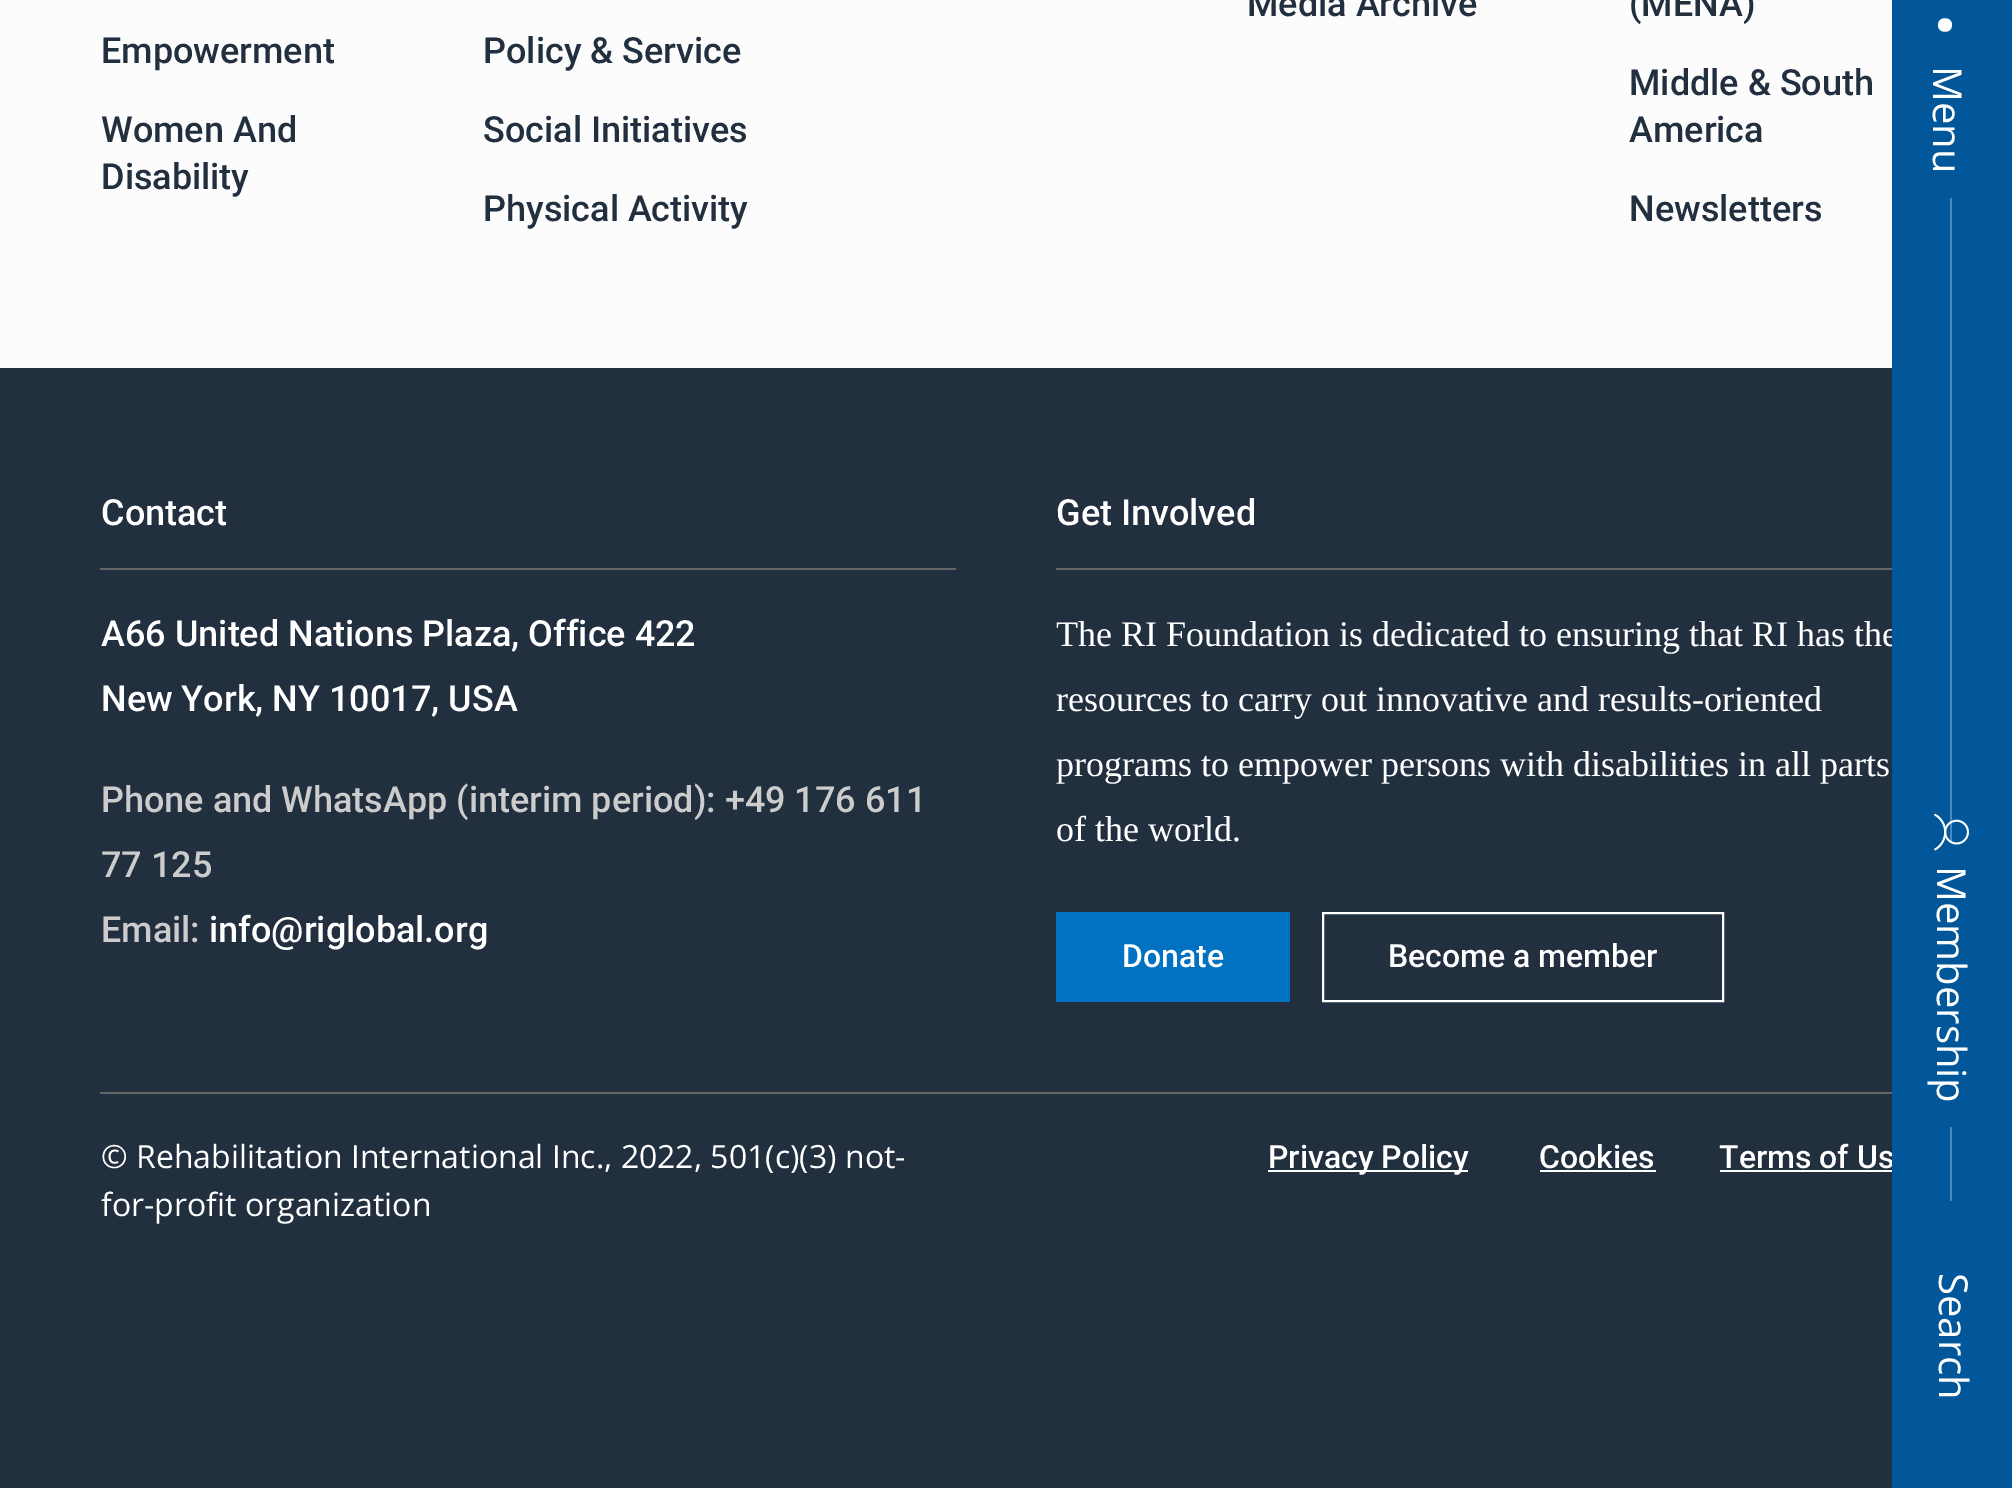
%!PS
<< /PageSize [2012 1488] >> setpagedevice
/rgb { 3 { 255 div 3 1 roll } repeat setrgbcolor } def
/font { [ exch dup neg 0 0 3 -1 roll 0 0 ] selectfont } def
/text { moveto show } def
/picture { 5 dict begin { /h /w /y /x /name } { exch def } forall
  gsave x y translate w h scale
  w h 8 [w 0 0 h 0 0] name (r) file false 3 colorimage grestore end } def
0 1488 translate 1 -1 scale
4 setmiterlimit
252 252 252 rgb
0 0 2012 1488 rectfill
34 47 63 rgb
0 368 1892 1120 rectfill
102 102 102 rgb
100 1092 1792 2 rectfill
100 568 856 2 rectfill
1056 568 836 2 rectfill
1 114 194 rgb
1056 912 234 90 rectfill
255 255 255 rgb
2 setlinewidth
1323 913 400 88 rectstroke
1268 1170 200 2 rectfill
1540 1170 116 2 rectfill
1720 1170 172 2 rectfill
/Roboto-Medium 36 font
34 47 63 rgb
(Empowerment) 101 63 text
(Women And) 101 142 text
(Disability) 101 189 text
(Policy & Service) 483 63 text
(Social Initiatives) 483 142 text
(Physical Activity) 483 221 text
(Media Archive) 1247 16 text
(\(MENA\)) 1629 16 text
(Middle & South) 1629 95 text
(America) 1629 142 text
(Newsletters) 1629 221 text
255 255 255 rgb
(Contact) 101 525 text
(A66 United Nations Plaza, Office 422) 101 646 text
(New York, NY 10017, USA) 101 711 text
204 204 204 rgb
(Phone and WhatsApp \(interim period\): +49 176 611) 101 812 text
(77 125) 101 877 text
(Email:) 101 942 text
255 255 255 rgb
(info@riglobal.org) 209 942 text
(Get Involved) 1056 525 text
/LiberationSerif-Regular 36 font
(The RI Foundation is dedicated to ensuring that RI has the) 1056 646 text
(resources to carry out innovative and results-oriented) 1056 711 text
(programs to empower persons with disabilities in all parts) 1056 776 text
(of the world.) 1056 841 text
/Roboto-Medium 32 font
(Donate) 1122 967 text
(Become a member) 1388 967 text
/OpenSans-Regular 32 font
(© Rehabilitation International Inc., 2022, 501\(c\)\(3\) not-) 101 1168 text
(for-profit organization) 101 1216 text
/Roboto-Medium 32 font
(Privacy Policy) 1268 1168 text
(Cookies) 1539 1168 text
(Terms of Us) 1719 1168 text
1 87 153 rgb
1892 0 120 1488 rectfill
255 255 255 rgb
1952 25 moveto 0 9 -14 9 -14 0 rcurveto 0 -9 14 -9 14 0 rcurveto closepath fill
/OpenSans-Regular 40 font
gsave 1933 66 translate 90 rotate 0 0 moveto (Menu) show grestore
77 137 184 rgb
1950 198 2 1003 rectfill
1 87 153 rgb
1950 842 2 285 rectfill
(img_01.rgb) 1934 813 35 38 picture
255 255 255 rgb
gsave 1937 866 translate 90 rotate 0 0 moveto (Membership) show grestore
gsave 1939 1273 translate 90 rotate 0 0 moveto (Search) show grestore
showpage
